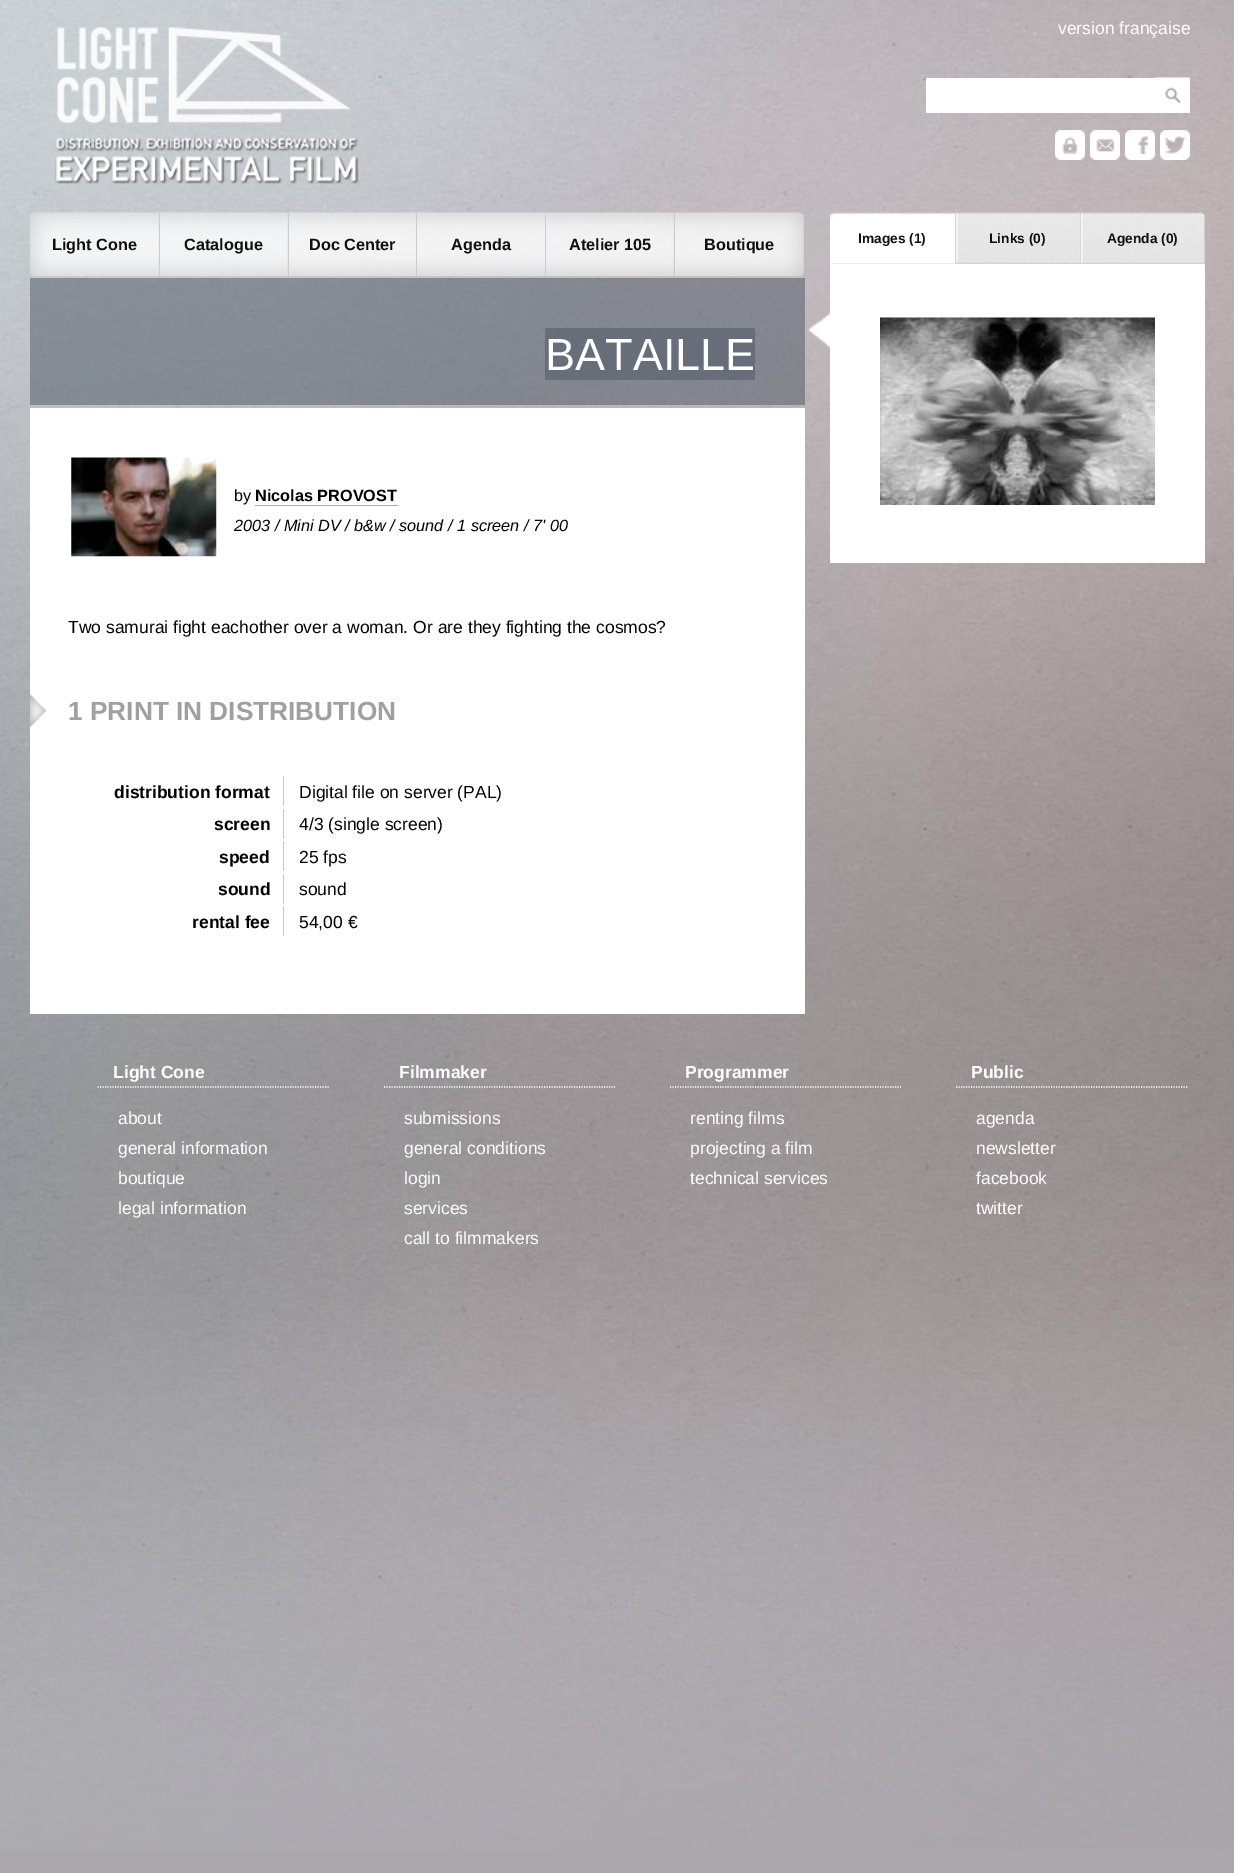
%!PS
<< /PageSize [1234 1873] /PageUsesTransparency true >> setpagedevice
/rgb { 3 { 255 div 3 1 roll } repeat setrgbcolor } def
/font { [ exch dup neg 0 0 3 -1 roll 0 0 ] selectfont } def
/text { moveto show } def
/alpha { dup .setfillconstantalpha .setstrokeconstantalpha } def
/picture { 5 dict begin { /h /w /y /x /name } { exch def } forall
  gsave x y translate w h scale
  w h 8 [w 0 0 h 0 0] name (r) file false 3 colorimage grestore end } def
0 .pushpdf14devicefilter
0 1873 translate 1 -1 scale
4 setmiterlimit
170 168 173 rgb
0 0 1234 1873 rectfill
(img_01.rgb) 0 0 1234 1849 picture
(img_02.rgb) 55 27 304 157 picture
255 255 255 rgb
926 78 229 35 rectfill
1155 104 35 9 rectfill
(img_03.rgb) 1155 77 35 27 picture
(img_04.rgb) 1055 130 30 30 picture
(img_05.rgb) 1090 130 30 30 picture
(img_06.rgb) 1125 130 30 30 picture
(img_07.rgb) 1160 130 30 30 picture
(img_08.rgb) 30 212 129 65 picture
(img_09.rgb) 158 212 130 65 picture
204 204 204 rgb
159 213 1 63 rectfill
(img_10.rgb) 287 212 130 65 picture
288 213 1 63 rectfill
(img_11.rgb) 416 212 129 65 picture
416 213 1 63 rectfill
(img_12.rgb) 545 212 129 65 picture
545 213 1 63 rectfill
(img_13.rgb) 673 212 131 65 picture
674 213 1 63 rectfill
(img_14.rgb) 808 312 22 36 picture
(img_15.rgb) 830 212 125 52 picture
(img_16.rgb) 955 212 125 52 picture
(img_17.rgb) 1080 212 125 52 picture
255 255 255 rgb
830 264 375 299 rectfill
(img_18.rgb) 880 317 275 188 picture
0.5 alpha
74 86 100 rgb
30 278 775 127 rectfill
545 328 210 52 rectfill
1 alpha
255 255 255 rgb
30 408 775 606 rectfill
(img_19.rgb) 71 457 146 100 picture
170 170 170 rgb
255 505 143 1 rectfill
(img_20.rgb) 30 694 17 34 picture
169 208 216 rgb
283 776 1 30 rectfill
283 809 1 30 rectfill
283 841 1 30 rectfill
283 874 1 30 rectfill
283 906 1 30 rectfill
255 255 255 rgb
1.2 setlinewidth
[1.25 1.25] 0 setdash
97.5 1087 moveto 231.5 0 rlineto stroke
384 1087 moveto 231 0 rlineto stroke
670 1087 moveto 231 0 rlineto stroke
956 1087 moveto 231.5 0 rlineto stroke
/LiberationSans-Regular 17.5 font
(version française) 1058 34 text
/LiberationSans-Bold 16.25 font
16 16 16 rgb
(Light Cone) 52 250 text
(Catalogue) 184 250 text
(Doc Center) 309 250 text
(Agenda) 451 250 text
(Atelier 105) 569 250 text
(Boutique) 704 250 text
/LiberationSans-Bold 13.75 font
(Images \(1\)) 858 243 text
(Links \(0\)) 989 243 text
(Agenda \(0\)) 1107 243 text
/LiberationSans-Regular 45 font
255 255 255 rgb
(BATAILLE) 545 370 text
/LiberationSans-Regular 16.25 font
0 0 0 rgb
(by) 234 501 text
/LiberationSans-Bold 16.25 font
(Nicolas PROVOST) 255 501 text
/LiberationSans-Italic 16.25 font
(2003 / Mini DV / b&w / sound / 1 screen / 7' 00) 234 531 text
/LiberationSans-Regular 17.5 font
(Two samurai fight eachother over a woman. Or are they fighting the cosmos?) 68 633 text
/LiberationSans-Bold 26.25 font
160 160 160 rgb
(1 PRINT IN DISTRIBUTION) 68 720 text
/LiberationSans-Bold 17.5 font
0 0 0 rgb
(distribution format) 114 798 text
/LiberationSans-Regular 17.5 font
(Digital file on server \(PAL\)) 299 798 text
/LiberationSans-Bold 17.5 font
(screen) 214 830 text
/LiberationSans-Regular 17.5 font
(4/3 \(single screen\)) 299 830 text
/LiberationSans-Bold 17.5 font
(speed) 219 863 text
/LiberationSans-Regular 17.5 font
(25 fps) 299 863 text
/LiberationSans-Bold 17.5 font
(sound) 218 895 text
/LiberationSans-Regular 17.5 font
(sound) 299 895 text
/LiberationSans-Bold 17.5 font
(rental fee) 192 928 text
/LiberationSans-Regular 17.5 font
(54,00 €) 299 928 text
/LiberationSans-Bold 17.5 font
255 255 255 rgb
(Light Cone) 113 1078 text
/LiberationSans-Regular 17.5 font
(about) 118 1124 text
(general information) 118 1154 text
(boutique) 118 1184 text
(legal information) 118 1214 text
/LiberationSans-Bold 17.5 font
(Filmmaker) 399 1078 text
/LiberationSans-Regular 17.5 font
(submissions) 404 1124 text
(general conditions) 404 1154 text
(login) 404 1184 text
(services) 404 1214 text
(call to filmmakers) 404 1244 text
/LiberationSans-Bold 17.5 font
(Programmer) 685 1078 text
/LiberationSans-Regular 17.5 font
(renting films) 690 1124 text
(projecting a film) 690 1154 text
(technical services) 690 1184 text
/LiberationSans-Bold 17.5 font
(Public) 971 1078 text
/LiberationSans-Regular 17.5 font
(agenda) 976 1124 text
(newsletter) 976 1154 text
(facebook) 976 1184 text
(twitter) 976 1214 text
.poppdf14devicefilter showpage
